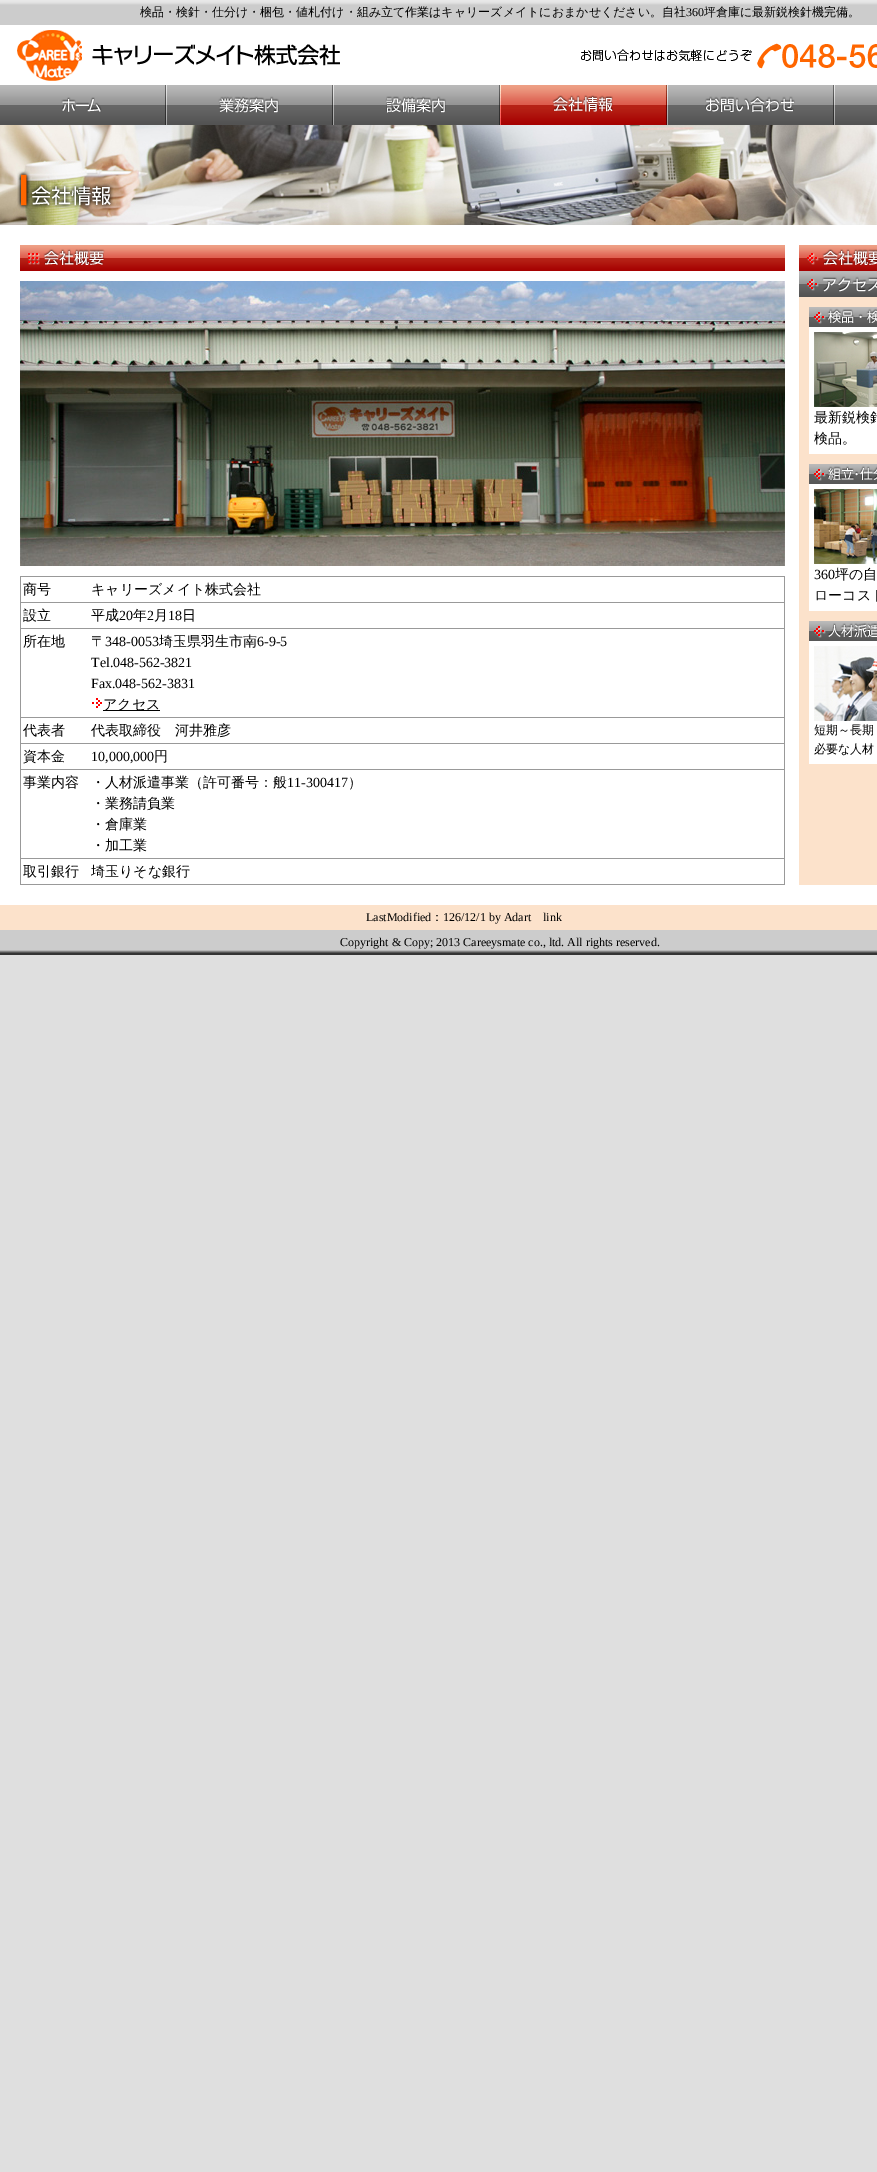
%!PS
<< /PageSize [877 2172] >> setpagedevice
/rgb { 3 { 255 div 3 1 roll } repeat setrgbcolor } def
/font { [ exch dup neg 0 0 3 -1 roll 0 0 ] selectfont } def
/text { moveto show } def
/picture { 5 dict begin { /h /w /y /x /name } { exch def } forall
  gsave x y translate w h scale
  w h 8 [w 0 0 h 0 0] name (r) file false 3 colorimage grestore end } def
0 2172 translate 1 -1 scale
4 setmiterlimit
223 223 223 rgb
0 0 877 2172 rectfill
255 255 255 rgb
0 25 877 880 rectfill
(img_01.rgb) 0 0 877 25 picture
(img_02.rgb) 17 30 860 51 picture
(img_03.rgb) 0 85 166 40 picture
(img_04.rgb) 166 85 167 40 picture
(img_05.rgb) 333 85 167 40 picture
(img_06.rgb) 500 85 167 40 picture
(img_07.rgb) 667 85 167 40 picture
(img_08.rgb) 834 85 43 40 picture
(img_09.rgb) 0 125 877 100 picture
(img_10.rgb) 20 245 765 26 picture
(img_11.rgb) 20 281 765 285 picture
153 153 153 rgb
20 576 765 309 rectfill
255 255 255 rgb
21 577 763 25 rectfill
21 603 763 25 rectfill
21 629 763 88 rectfill
(img_12.rgb) 92 698 10 10 picture
0 0 0 rgb
103 710 57 1 rectfill
255 255 255 rgb
21 718 763 25 rectfill
21 744 763 25 rectfill
21 770 763 88 rectfill
21 859 763 25 rectfill
252 226 203 rgb
799 297 78 588 rectfill
(img_13.rgb) 799 245 78 26 picture
(img_14.rgb) 799 271 78 26 picture
(img_15.rgb) 809 307 68 20 picture
255 255 255 rgb
809 327 68 127 rectfill
(img_16.rgb) 814 332 63 75 picture
(img_17.rgb) 809 464 68 20 picture
809 484 68 127 rectfill
(img_18.rgb) 814 489 63 75 picture
(img_19.rgb) 809 621 68 20 picture
809 641 68 123 rectfill
(img_20.rgb) 814 646 63 75 picture
252 226 203 rgb
0 905 877 25 rectfill
(img_21.rgb) 0 930 877 25 picture
/WenQuanYiZenHei-Medium 12 font
0 0 0 rgb
(検品・検針・仕分け・梱包・値札付け・組み立て作業はキャリーズメイトにおまかせください。自社) 140 16 text
/LiberationSerif-Regular 12 font
(360) 686 16 text
/WenQuanYiZenHei-Medium 12 font
(坪倉庫に最新鋭検針機完備。) 704 16 text
/WenQuanYiZenHei-Medium 14 font
(商号) 23 594 text
(キャリーズメイト株式会社) 91 594 text
(設立) 23 620 text
(平成) 91 620 text
/LiberationSerif-Regular 14 font
(20) 119 620 text
/WenQuanYiZenHei-Medium 14 font
(年) 133 620 text
/LiberationSerif-Regular 14 font
(2) 147 620 text
/WenQuanYiZenHei-Medium 14 font
(月) 154 620 text
/LiberationSerif-Regular 14 font
(18) 168 620 text
/WenQuanYiZenHei-Medium 14 font
(日) 182 620 text
(所在地) 23 646 text
(〒) 91 646 text
/LiberationSerif-Regular 14 font
(348-0053) 105 646 text
/WenQuanYiZenHei-Medium 14 font
(埼玉県羽生市南) 159 646 text
/LiberationSerif-Regular 14 font
(6-9-5) 257 646 text
(Tel.048-562-3821) 91 667 text
(Fax.048-562-3831) 91 688 text
/WenQuanYiZenHei-Medium 14 font
(アクセス) 103 709 text
(代表者) 23 735 text
(代表取締役　河井雅彦) 91 735 text
(資本金) 23 761 text
/LiberationSerif-Regular 14 font
(10,000,000) 91 761 text
/WenQuanYiZenHei-Medium 14 font
(円) 154 761 text
(事業内容) 23 787 text
(・人材派遣事業（許可番号：般) 91 787 text
/LiberationSerif-Regular 14 font
(11-300417) 287 787 text
/WenQuanYiZenHei-Medium 14 font
(）) 348 787 text
(・業務請負業) 91 808 text
(・倉庫業) 91 829 text
(・加工業) 91 850 text
(取引銀行) 23 876 text
(埼玉りそな銀行) 91 876 text
(最新鋭検針) 814 422 text
(検品。) 814 443 text
/LiberationSerif-Regular 14 font
(360) 814 579 text
/WenQuanYiZenHei-Medium 14 font
(坪の自) 835 579 text
(ローコスト) 814 600 text
/WenQuanYiZenHei-Medium 12 font
(短期～長期) 814 734 text
(必要な人材) 814 753 text
/LiberationSerif-Regular 12 font
(LastModified) 366 921 text
/WenQuanYiZenHei-Medium 12 font
(：) 431 921 text
/LiberationSerif-Regular 12 font
(126/12/1 by Adart) 443 921 text
(link) 543 921 text
(Copyright & Copy; 2013 Careeysmate co., ltd. All rights reserved.) 340 946 text
showpage
